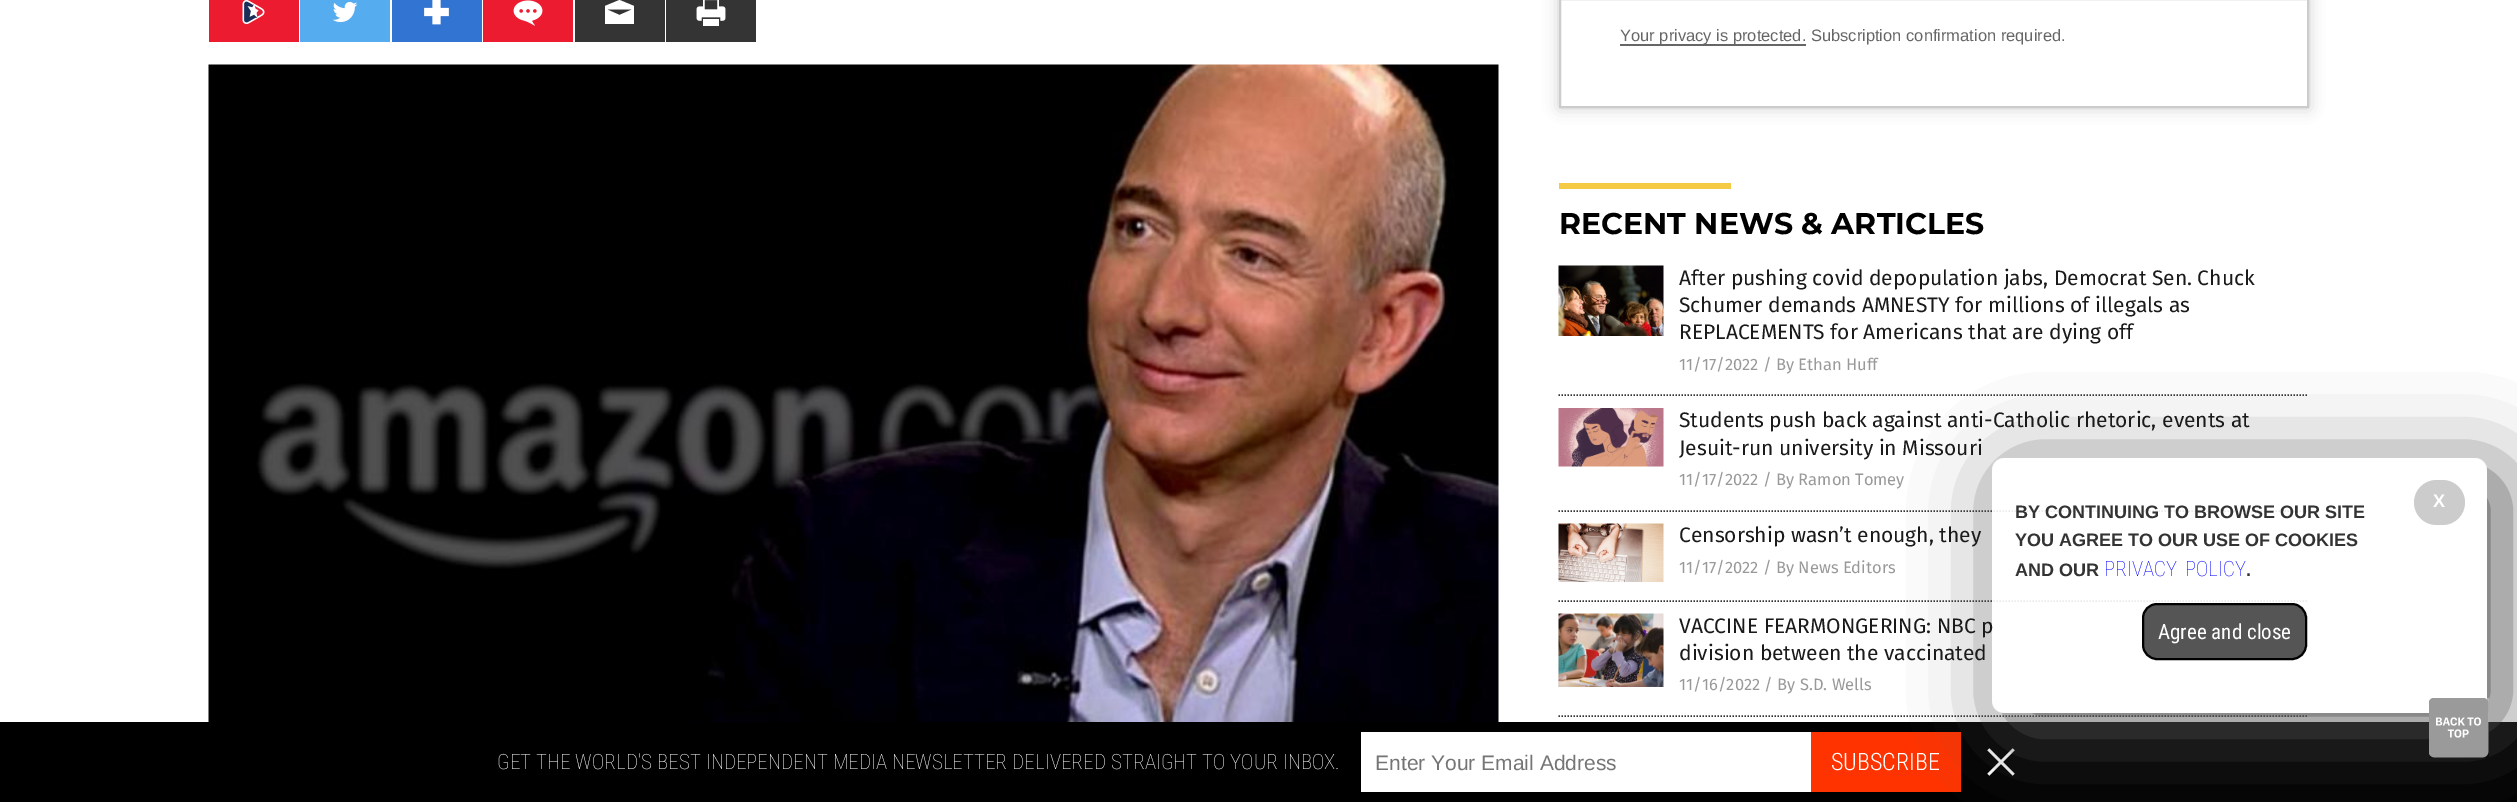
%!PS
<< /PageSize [2517 802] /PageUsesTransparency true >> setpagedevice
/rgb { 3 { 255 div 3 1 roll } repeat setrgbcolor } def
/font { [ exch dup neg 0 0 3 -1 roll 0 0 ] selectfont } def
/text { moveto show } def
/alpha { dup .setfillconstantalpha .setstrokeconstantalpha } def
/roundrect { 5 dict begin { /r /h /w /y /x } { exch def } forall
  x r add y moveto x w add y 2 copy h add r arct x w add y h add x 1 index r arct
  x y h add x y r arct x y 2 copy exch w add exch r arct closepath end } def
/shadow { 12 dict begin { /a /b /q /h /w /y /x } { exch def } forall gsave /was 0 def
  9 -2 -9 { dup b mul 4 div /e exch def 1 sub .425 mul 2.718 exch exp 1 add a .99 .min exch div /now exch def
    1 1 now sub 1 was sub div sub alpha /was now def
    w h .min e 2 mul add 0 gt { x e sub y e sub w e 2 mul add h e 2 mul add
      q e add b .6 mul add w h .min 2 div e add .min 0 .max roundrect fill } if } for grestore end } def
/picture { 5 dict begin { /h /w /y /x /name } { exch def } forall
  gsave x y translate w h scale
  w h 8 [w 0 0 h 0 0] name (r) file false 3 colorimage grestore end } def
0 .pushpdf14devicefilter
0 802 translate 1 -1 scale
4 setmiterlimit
255 255 255 rgb
0 0 2517 802 rectfill
237 27 47 rgb
209 0 90 42 rectfill
(img_01.rgb) 242 0 23 25 picture
85 172 239 rgb
300 0 90 42 rectfill
(img_02.rgb) 332 1 26 22 picture
50 116 209 rgb
392 0 90 42 rectfill
(img_03.rgb) 424 0 25 25 picture
237 27 47 rgb
483 0 90 42 rectfill
(img_04.rgb) 513 0 30 26 picture
52 52 52 rgb
575 0 90 42 rectfill
255 255 255 rgb
619.5 0 moveto -14.5 6 rlineto 0 18 rlineto 29 0 rlineto 0 -18 rlineto closepath 619.5 15 moveto -12.5 -5.5 rlineto 25 0 rlineto closepath fill
52 52 52 rgb
666 0 90 42 rectfill
(img_05.rgb) 696 0 30 26 picture
(img_06.rgb) 208 64 1291 658 picture
gsave
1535 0 moveto 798 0 rlineto 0 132 rlineto -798 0 rlineto closepath 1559 -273 moveto 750 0 rlineto 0 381 rlineto -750 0 rlineto closepath eoclip newpath
204 204 204 rgb
1559 -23 750 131 0 7.5 1 shadow
grestore
204 204 204 rgb
2 setlinewidth
1560 -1 748 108 rectstroke
102 102 102 rgb
1620 44 186 2 rectfill
245 202 69 rgb
1559 183 172 6 rectfill
52 52 52 rgb
1.5 setlinewidth
[1.5 1.5] 0 setdash
1558.5 395 moveto 750 0 rlineto stroke
(img_07.rgb) 1558 265 106 71 picture
1558.5 511 moveto 750 0 rlineto stroke
(img_08.rgb) 1558 408 106 59 picture
1558.5 601 moveto 750 0 rlineto stroke
(img_09.rgb) 1558 523 106 59 picture
1558.5 716 moveto 750 0 rlineto stroke
(img_10.rgb) 1558 613 106 74 picture
0 0 0 rgb
0 722 2517 80 rectfill
255 51 0 rgb
1811 732 150 60 rectfill
(img_11.rgb) 1987 748 28 28 picture
gsave
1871 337 moveto 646 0 rlineto 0 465 rlineto -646 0 rlineto closepath 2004 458 moveto 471 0 rlineto 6.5 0 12 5.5 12 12 rcurveto 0 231 rlineto 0 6.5 -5.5 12 -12 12 rcurveto -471 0 rlineto -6.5 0 -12 -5.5 -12 -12 rcurveto 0 -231 rlineto 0 -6.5 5.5 -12 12 -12 rcurveto closepath eoclip newpath
85 85 85 rgb
2007 473 495 255 12 45 1 shadow
grestore
0.9 alpha
255 255 255 rgb
1992 458 495 255 12 roundrect fill
1 alpha
204 204 204 rgb
2414 480 51 45 22.5 roundrect fill
85 85 85 rgb
2143 604 163 55 14 roundrect gsave fill grestore
0 0 0 rgb
2 setlinewidth
[] 0 setdash
stroke
255 255 255 rgb
1361 732 450 60 rectfill
(img_12.rgb) 2429 698 60 60 picture
/LiberationSans-Regular 16.5 font
102 102 102 rgb
(Your privacy is protected. Subscription confirmation required.) 1620 41 text
/Montserrat-Bold 30 font
0 0 0 rgb
(RECENT NEWS & ARTICLES) 1559 234 text
/FiraSans-Regular 21 font
26 26 26 rgb
(After pushing covid depopulation jabs, Democrat Sen. Chuck) 1679 285 text
(Schumer demands AMNESTY for millions of illegals as) 1679 312 text
(REPLACEMENTS for Americans that are dying off) 1679 339 text
/FiraSans-Regular 16.5 font
153 153 153 rgb
(11/17/2022 / By Ethan Huff) 1679 370 text
/FiraSans-Regular 21 font
26 26 26 rgb
(Students push back against anti-Catholic rhetoric, events at) 1679 427 text
(Jesuit-run university in Missouri) 1679 455 text
/FiraSans-Regular 16.5 font
153 153 153 rgb
(11/17/2022 / By Ramon Tomey) 1679 485 text
/FiraSans-Regular 21 font
26 26 26 rgb
(Censorship wasn’t enough, they) 1679 542 text
/FiraSans-Regular 16.5 font
153 153 153 rgb
(11/17/2022 / By News Editors) 1679 573 text
/FiraSans-Regular 21 font
26 26 26 rgb
(VACCINE FEARMONGERING: NBC p) 1679 633 text
(division between the vaccinated) 1679 660 text
/FiraSans-Regular 16.5 font
153 153 153 rgb
(11/16/2022 / By S.D. Wells) 1679 690 text
/LiberationSans-Bold 18 font
255 255 255 rgb
(X) 2433 507 text
51 51 51 rgb
(BY CONTINUING TO BROWSE OUR SITE) 2015 518 text
(YOU AGREE TO OUR USE OF COOKIES) 2015 546 text
(AND OUR) 2015 576 text
/RobotoCondensed-Thin 21 font
0 0 255 rgb
2104 576 moveto 3 0 32 (PRIVACY POLICY) widthshow
/LiberationSans-Bold 18 font
51 51 51 rgb
(.) 2246 576 text
/RobotoCondensed-Regular 21 font
255 255 255 rgb
(Agree and close) 2158 639 text
/RobotoCondensed-Thin 21 font
497 769 moveto 0.25 0 32 (GET THE WORLD'S BEST INDEPENDENT MEDIA NEWSLETTER DELIVERED STRAIGHT TO YOUR INBOX.) widthshow
/LiberationSans-Regular 21 font
117 117 117 rgb
(Enter Your Email Address) 1375 770 text
/RobotoCondensed-Light 24 font
255 255 255 rgb
(SUBSCRIBE) 1831 770 text
.poppdf14devicefilter showpage
